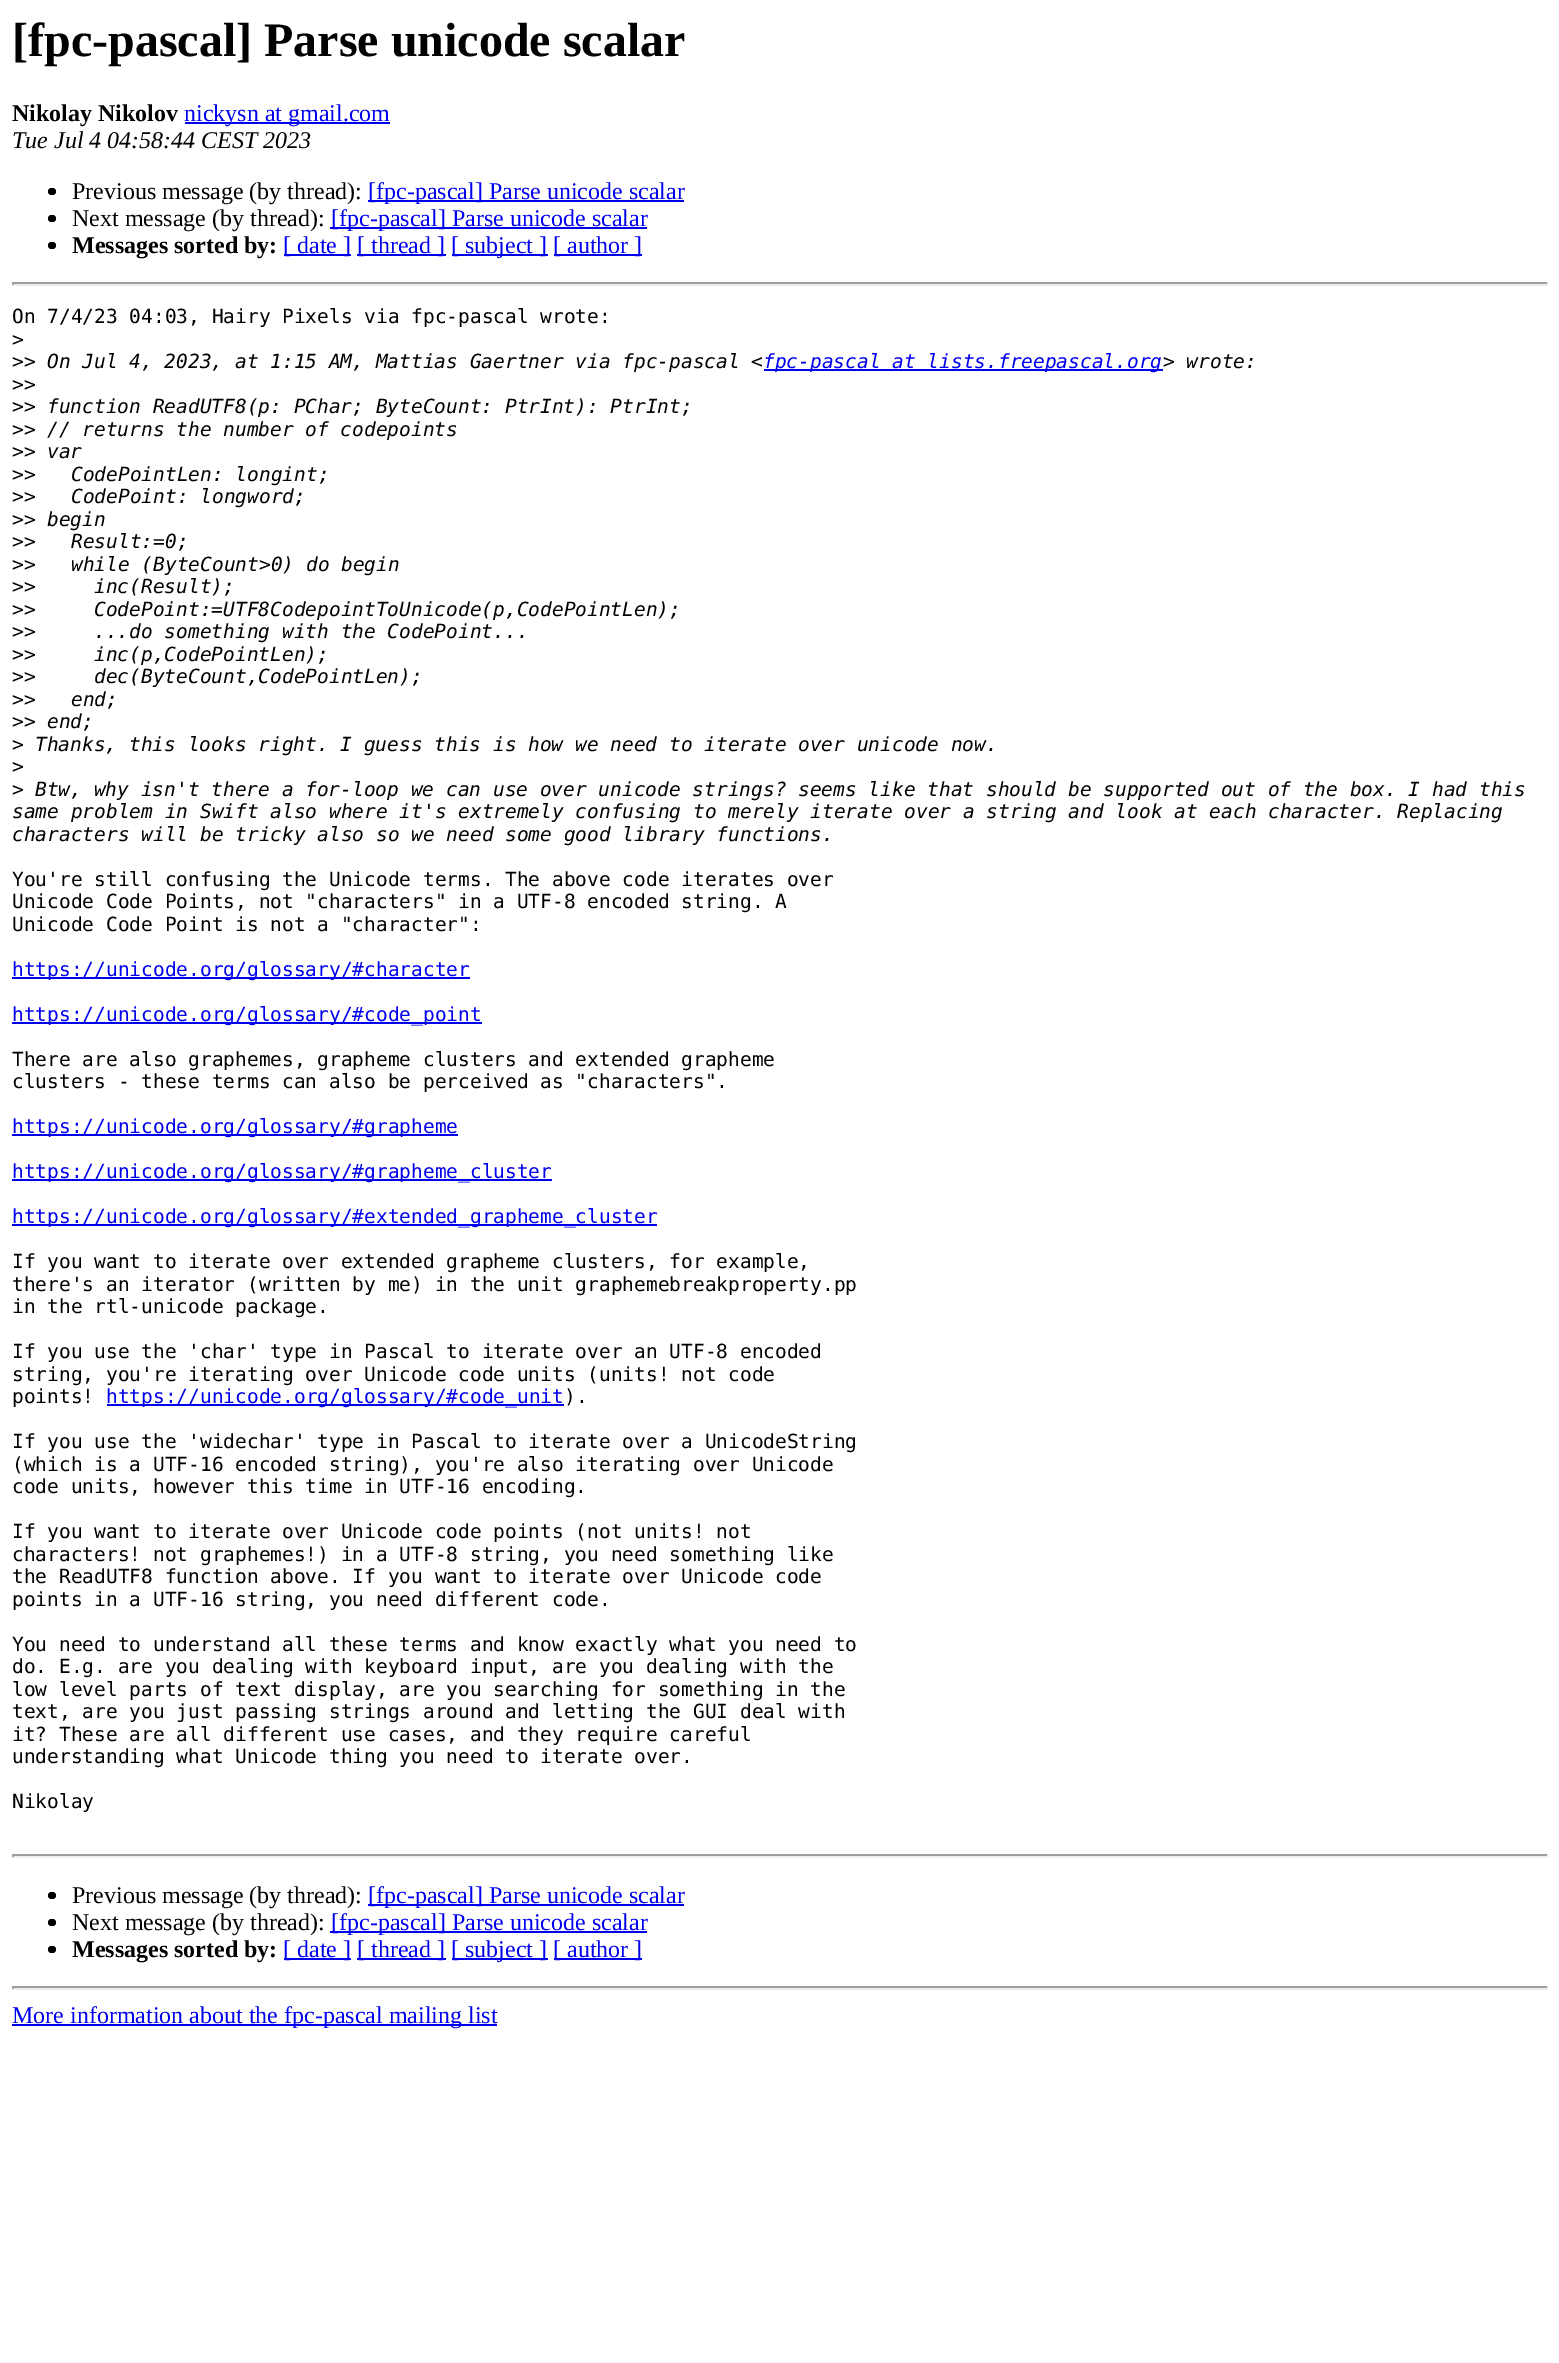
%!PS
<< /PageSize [1559 2363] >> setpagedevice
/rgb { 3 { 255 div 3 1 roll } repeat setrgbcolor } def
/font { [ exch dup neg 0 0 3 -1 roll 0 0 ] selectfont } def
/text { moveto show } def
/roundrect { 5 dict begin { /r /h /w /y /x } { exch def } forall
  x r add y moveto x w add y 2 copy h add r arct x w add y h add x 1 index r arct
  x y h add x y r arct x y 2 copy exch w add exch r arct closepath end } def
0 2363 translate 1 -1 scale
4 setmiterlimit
255 255 255 rgb
0 0 1559 2363 rectfill
0 0 238 rgb
185 122 205 2 rectfill
0 0 0 rgb
48 188 8 7 3.5 roundrect fill
0 0 238 rgb
368 200 316 2 rectfill
0 0 0 rgb
48 215 8 7 3.5 roundrect fill
0 0 238 rgb
330 227 317 2 rectfill
0 0 0 rgb
48 242 8 7 3.5 roundrect fill
0 0 238 rgb
284 254 67 2 rectfill
357 254 89 2 rectfill
452 254 96 2 rectfill
554 254 88 2 rectfill
159 159 159 rgb
12 282 1536 2 rectfill
238 238 238 rgb
1547 282 2 3 rectfill
12 284 1536 2 rectfill
159 159 159 rgb
12 282 2 3 rectfill
0 0 238 rgb
764 369 399 2 rectfill
12 977 458 2 rectfill
12 1022 470 2 rectfill
12 1134 446 2 rectfill
12 1179 540 2 rectfill
12 1224 645 2 rectfill
107 1404 457 2 rectfill
159 159 159 rgb
12 1854 1536 2 rectfill
238 238 238 rgb
1547 1854 2 3 rectfill
12 1856 1536 2 rectfill
159 159 159 rgb
12 1854 2 3 rectfill
0 0 0 rgb
48 1892 8 7 3.5 roundrect fill
0 0 238 rgb
368 1904 316 2 rectfill
0 0 0 rgb
48 1919 8 7 3.5 roundrect fill
0 0 238 rgb
330 1931 317 2 rectfill
0 0 0 rgb
48 1946 8 7 3.5 roundrect fill
0 0 238 rgb
284 1958 67 2 rectfill
357 1958 89 2 rectfill
452 1958 96 2 rectfill
554 1958 88 2 rectfill
159 159 159 rgb
12 1986 1536 2 rectfill
238 238 238 rgb
1547 1986 2 3 rectfill
12 1988 1536 2 rectfill
159 159 159 rgb
12 1986 2 3 rectfill
0 0 238 rgb
12 2024 485 2 rectfill
/LiberationSerif-Bold 48 font
0 0 0 rgb
([fpc-pascal] Parse unicode scalar) 12 56 text
/LiberationSerif-Bold 24 font
(Nikolay Nikolov) 12 121 text
/LiberationSerif-Regular 24 font
0 0 238 rgb
(nickysn at gmail.com) 184 121 text
/LiberationSerif-Italic 24 font
0 0 0 rgb
(Tue Jul 4 04:58:44 CEST 2023) 12 148 text
/LiberationSerif-Regular 24 font
(Previous message \(by thread\):) 72 199 text
0 0 238 rgb
([fpc-pascal] Parse unicode scalar) 368 199 text
0 0 0 rgb
(Next message \(by thread\):) 72 226 text
0 0 238 rgb
([fpc-pascal] Parse unicode scalar) 331 226 text
/LiberationSerif-Bold 24 font
0 0 0 rgb
(Messages sorted by:) 72 253 text
/LiberationSerif-Regular 24 font
0 0 238 rgb
([ date ]) 283 253 text
([ thread ]) 357 253 text
([ subject ]) 451 253 text
([ author ]) 553 253 text
/DejaVuSansMono-Regular 19.5 font
0 0 0 rgb
(On 7/4/23 04:03, Hairy Pixels via fpc-pascal wrote:) 12 323 text
(>) 12 346 text
(>>) 12 368 text
/DejaVuSansMono-Italic 19.5 font
(On Jul 4, 2023, at 1:15 AM, Mattias Gaertner via fpc-pascal <) 47 368 text
0 0 238 rgb
(fpc-pascal at lists.freepascal.org) 763 368 text
0 0 0 rgb
(> wrote:) 1163 368 text
/DejaVuSansMono-Regular 19.5 font
(>>) 12 391 text
(>>) 12 413 text
/DejaVuSansMono-Italic 19.5 font
(function ReadUTF8\(p: PChar; ByteCount: PtrInt\): PtrInt;) 47 413 text
/DejaVuSansMono-Regular 19.5 font
(>>) 12 436 text
/DejaVuSansMono-Italic 19.5 font
(// returns the number of codepoints) 47 436 text
/DejaVuSansMono-Regular 19.5 font
(>>) 12 458 text
/DejaVuSansMono-Italic 19.5 font
(var) 47 458 text
/DejaVuSansMono-Regular 19.5 font
(>>) 12 481 text
/DejaVuSansMono-Italic 19.5 font
(CodePointLen: longint;) 71 481 text
/DejaVuSansMono-Regular 19.5 font
(>>) 12 503 text
/DejaVuSansMono-Italic 19.5 font
(CodePoint: longword;) 71 503 text
/DejaVuSansMono-Regular 19.5 font
(>>) 12 526 text
/DejaVuSansMono-Italic 19.5 font
(begin) 47 526 text
/DejaVuSansMono-Regular 19.5 font
(>>) 12 548 text
/DejaVuSansMono-Italic 19.5 font
(Result:=0;) 71 548 text
/DejaVuSansMono-Regular 19.5 font
(>>) 12 571 text
/DejaVuSansMono-Italic 19.5 font
(while \(ByteCount>0\) do begin) 71 571 text
/DejaVuSansMono-Regular 19.5 font
(>>) 12 593 text
/DejaVuSansMono-Italic 19.5 font
(inc\(Result\);) 94 593 text
/DejaVuSansMono-Regular 19.5 font
(>>) 12 616 text
/DejaVuSansMono-Italic 19.5 font
(CodePoint:=UTF8CodepointToUnicode\(p,CodePointLen\);) 94 616 text
/DejaVuSansMono-Regular 19.5 font
(>>) 12 638 text
/DejaVuSansMono-Italic 19.5 font
(...do something with the CodePoint...) 94 638 text
/DejaVuSansMono-Regular 19.5 font
(>>) 12 661 text
/DejaVuSansMono-Italic 19.5 font
(inc\(p,CodePointLen\);) 94 661 text
/DejaVuSansMono-Regular 19.5 font
(>>) 12 683 text
/DejaVuSansMono-Italic 19.5 font
(dec\(ByteCount,CodePointLen\);) 94 683 text
/DejaVuSansMono-Regular 19.5 font
(>>) 12 706 text
/DejaVuSansMono-Italic 19.5 font
(end;) 71 706 text
/DejaVuSansMono-Regular 19.5 font
(>>) 12 728 text
/DejaVuSansMono-Italic 19.5 font
(end;) 47 728 text
/DejaVuSansMono-Regular 19.5 font
(>) 12 751 text
/DejaVuSansMono-Italic 19.5 font
(Thanks, this looks right. I guess this is how we need to iterate over unicode now.) 35 751 text
/DejaVuSansMono-Regular 19.5 font
(>) 12 773 text
(>) 12 796 text
/DejaVuSansMono-Italic 19.5 font
(Btw, why isn't there a for-loop we can use over unicode strings? seems like that should be supported out of the box. I had this) 35 796 text
(same problem in Swift also where it's extremely confusing to merely iterate over a string and look at each character. Replacing) 12 818 text
(characters will be tricky also so we need some good library functions.) 12 841 text
/DejaVuSansMono-Regular 19.5 font
(You're still confusing the Unicode terms. The above code iterates over) 12 886 text
(Unicode Code Points, not "characters" in a UTF-8 encoded string. A) 12 908 text
(Unicode Code Point is not a "character":) 12 931 text
0 0 238 rgb
(https://unicode.org/glossary/#character) 12 976 text
(https://unicode.org/glossary/#code_point) 12 1021 text
0 0 0 rgb
(There are also graphemes, grapheme clusters and extended grapheme) 12 1066 text
(clusters - these terms can also be perceived as "characters".) 12 1088 text
0 0 238 rgb
(https://unicode.org/glossary/#grapheme) 12 1133 text
(https://unicode.org/glossary/#grapheme_cluster) 12 1178 text
(https://unicode.org/glossary/#extended_grapheme_cluster) 12 1223 text
0 0 0 rgb
(If you want to iterate over extended grapheme clusters, for example,) 12 1268 text
(there's an iterator \(written by me\) in the unit graphemebreakproperty.pp) 12 1291 text
(in the rtl-unicode package.) 12 1313 text
(If you use the 'char' type in Pascal to iterate over an UTF-8 encoded) 12 1358 text
(string, you're iterating over Unicode code units \(units! not code) 12 1381 text
(points!) 12 1403 text
0 0 238 rgb
(https://unicode.org/glossary/#code_unit) 106 1403 text
0 0 0 rgb
(\).) 564 1403 text
(If you use the 'widechar' type in Pascal to iterate over a UnicodeString) 12 1448 text
(\(which is a UTF-16 encoded string\), you're also iterating over Unicode) 12 1471 text
(code units, however this time in UTF-16 encoding.) 12 1493 text
(If you want to iterate over Unicode code points \(not units! not) 12 1538 text
(characters! not graphemes!\) in a UTF-8 string, you need something like) 12 1561 text
(the ReadUTF8 function above. If you want to iterate over Unicode code) 12 1583 text
(points in a UTF-16 string, you need different code.) 12 1606 text
(You need to understand all these terms and know exactly what you need to) 12 1651 text
(do. E.g. are you dealing with keyboard input, are you dealing with the) 12 1673 text
(low level parts of text display, are you searching for something in the) 12 1696 text
(text, are you just passing strings around and letting the GUI deal with) 12 1718 text
(it? These are all different use cases, and they require careful) 12 1741 text
(understanding what Unicode thing you need to iterate over.) 12 1763 text
(Nikolay) 12 1808 text
/LiberationSerif-Regular 24 font
(Previous message \(by thread\):) 72 1903 text
0 0 238 rgb
([fpc-pascal] Parse unicode scalar) 368 1903 text
0 0 0 rgb
(Next message \(by thread\):) 72 1930 text
0 0 238 rgb
([fpc-pascal] Parse unicode scalar) 331 1930 text
/LiberationSerif-Bold 24 font
0 0 0 rgb
(Messages sorted by:) 72 1957 text
/LiberationSerif-Regular 24 font
0 0 238 rgb
([ date ]) 283 1957 text
([ thread ]) 357 1957 text
([ subject ]) 451 1957 text
([ author ]) 553 1957 text
(More information about the fpc-pascal mailing list) 12 2023 text
showpage
